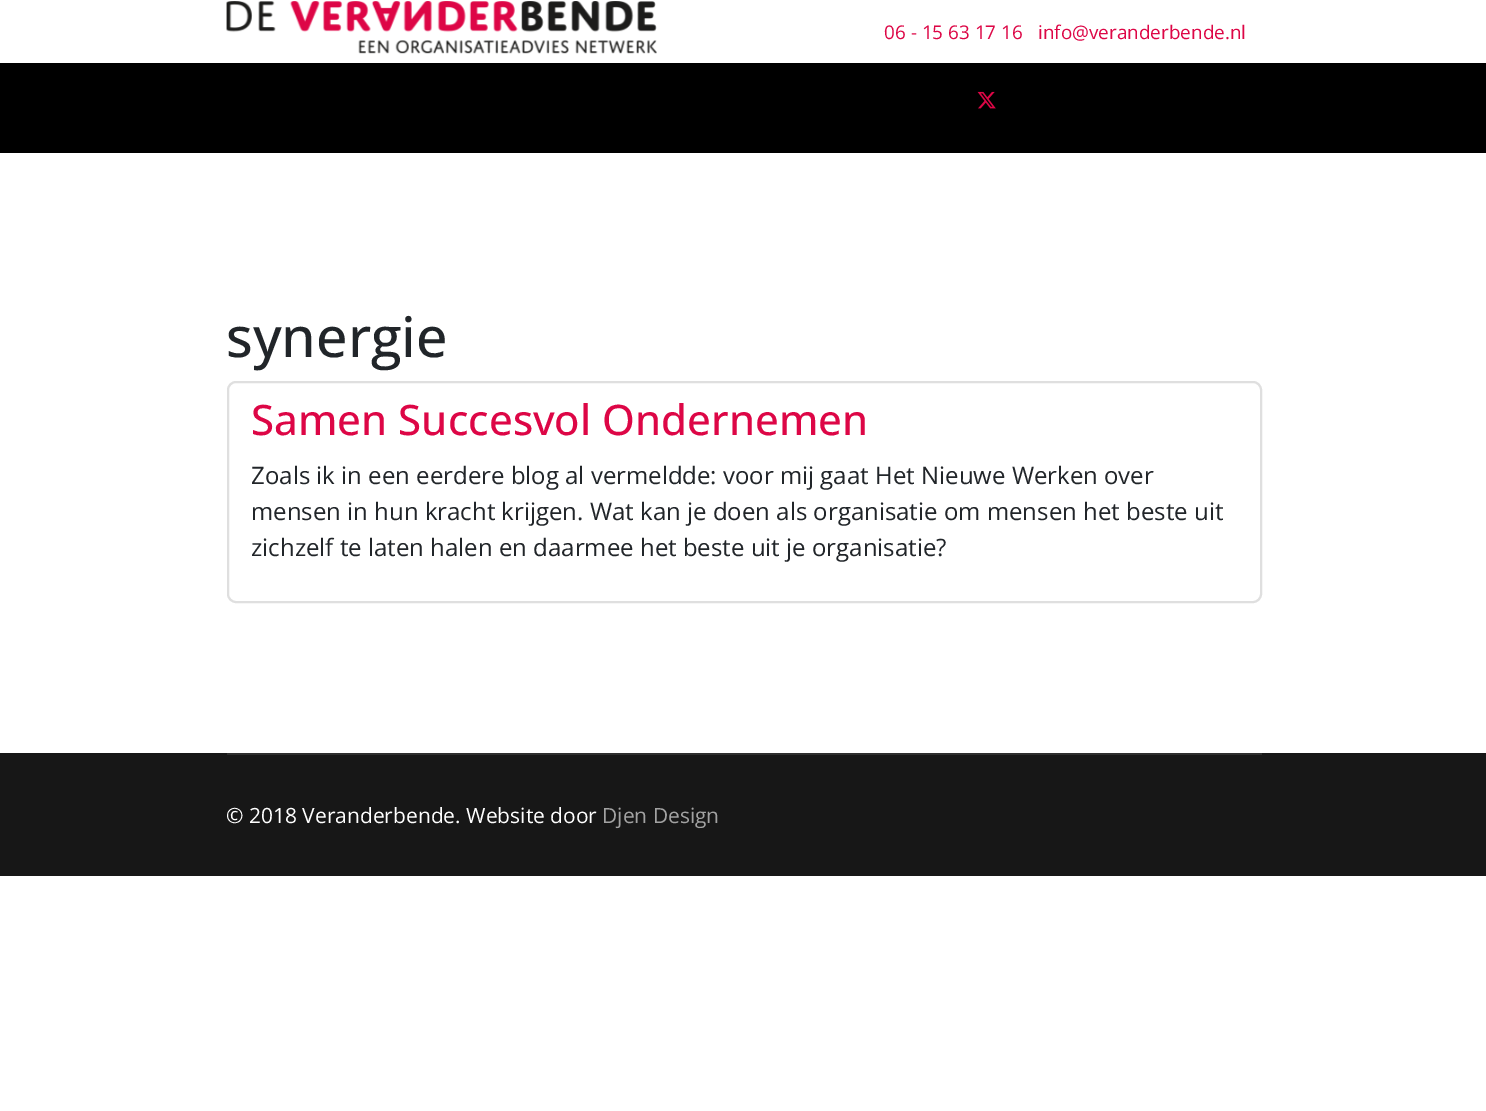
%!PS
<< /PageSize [1486 1111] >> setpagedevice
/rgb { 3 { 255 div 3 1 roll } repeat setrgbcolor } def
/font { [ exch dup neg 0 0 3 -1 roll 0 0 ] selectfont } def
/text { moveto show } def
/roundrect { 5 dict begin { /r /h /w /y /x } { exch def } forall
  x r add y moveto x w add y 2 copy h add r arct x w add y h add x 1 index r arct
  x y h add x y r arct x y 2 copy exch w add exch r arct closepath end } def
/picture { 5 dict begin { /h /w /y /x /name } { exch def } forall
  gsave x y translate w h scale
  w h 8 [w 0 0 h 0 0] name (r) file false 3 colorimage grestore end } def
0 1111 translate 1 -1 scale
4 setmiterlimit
255 255 255 rgb
0 0 1486 1111 rectfill
(img_01.rgb) 226 1 431 53 picture
0 0 0 rgb
0 63 1486 90 rectfill
(img_02.rgb) 977 91 19 18 picture
223 223 223 rgb
2 setlinewidth
228 382 1033 220 8 roundrect stroke
23 23 23 rgb
0 753 1486 123 rectfill
46 46 46 rgb
227 753 1035 2 rectfill
/OpenSans-Regular 18.9 font
221 6 70 rgb
(06 - 15 63 17 16) 884 39 text
(info@veranderbende.nl) 1038 39 text
/OpenSans-Medium 55.5 font
33 37 41 rgb
(synergie) 226 357 text
/OpenSans-Medium 42 font
221 6 70 rgb
(Samen Succesvol Ondernemen) 251 435 text
/OpenSans-Regular 24 font
33 37 41 rgb
(Zoals ik in een eerdere blog al vermeldde: voor mij gaat Het Nieuwe Werken over) 251 484 text
(mensen in hun kracht krijgen. Wat kan je doen als organisatie om mensen het beste uit) 251 520 text
(zichzelf te laten halen en daarmee het beste uit je organisatie?) 251 556 text
/OpenSans-Regular 21 font
255 255 255 rgb
(© 2018 Veranderbende. Website door) 226 823 text
162 162 162 rgb
(Djen Design) 602 823 text
showpage
